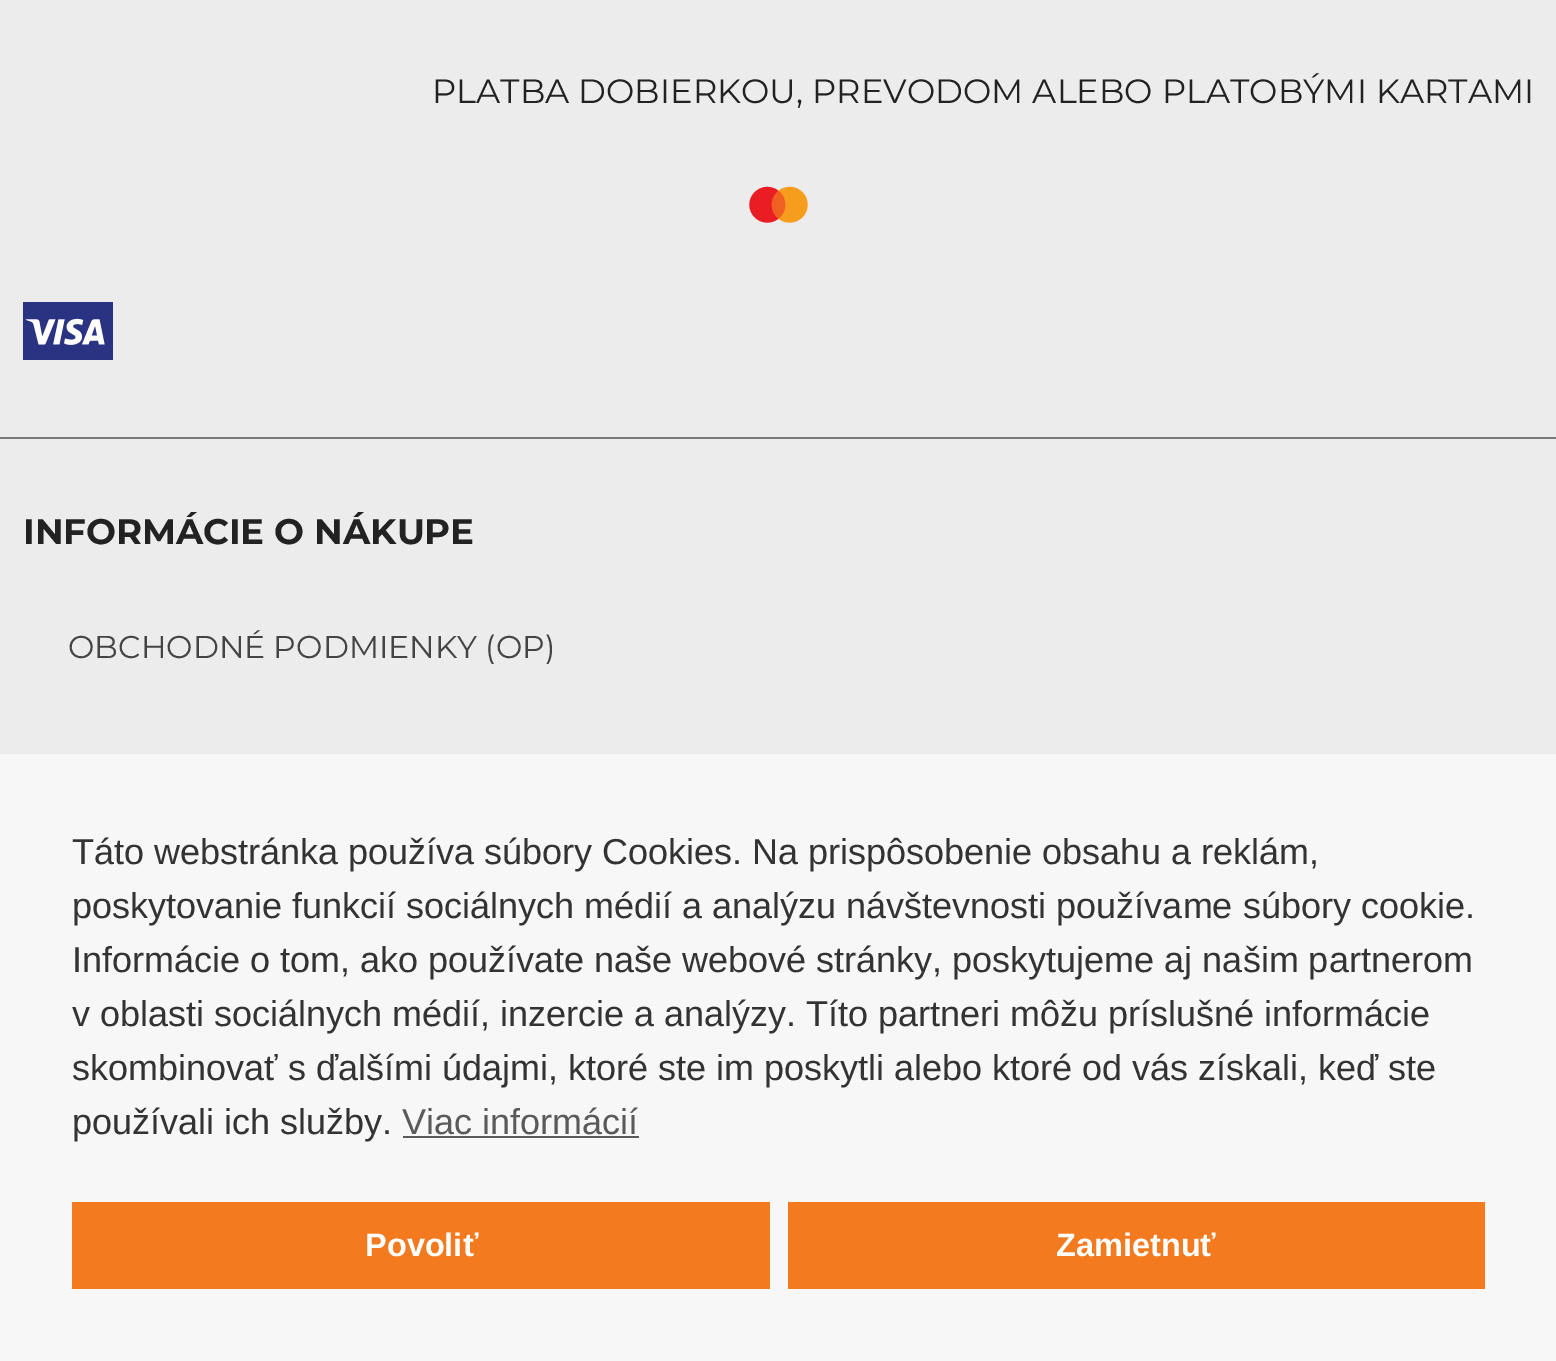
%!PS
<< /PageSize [1556 1361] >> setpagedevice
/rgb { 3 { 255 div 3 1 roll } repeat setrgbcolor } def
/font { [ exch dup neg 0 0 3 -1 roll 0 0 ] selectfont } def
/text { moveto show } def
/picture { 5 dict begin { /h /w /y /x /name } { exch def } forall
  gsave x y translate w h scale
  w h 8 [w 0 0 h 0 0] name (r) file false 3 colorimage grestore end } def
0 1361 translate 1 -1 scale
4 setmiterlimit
236 236 236 rgb
0 0 1556 1361 rectfill
(img_01.rgb) 749 186 59 37 picture
(img_02.rgb) 23 302 90 58 picture
122 122 122 rgb
0 437 1556 2 rectfill
247 247 247 rgb
0 754 1556 607 rectfill
90 90 90 rgb
403 1136 236 2 rectfill
243 122 31 rgb
72 1202 698 87 rectfill
788 1202 697 87 rectfill
/Montserrat-Regular 33.75 font
34 34 34 rgb
(PLATBA DOBIERKOU, PREVODOM ALEBO PLATOBÝMI KARTAMI) 432 103 text
/Montserrat-Bold 35.5 font
(INFORMÁCIE O NÁKUPE) 23 544 text
/Montserrat-Regular 31.5 font
68 68 68 rgb
(OBCHODNÉ PODMIENKY \(OP\)) 68 658 text
/LiberationSans-Regular 36 font
51 51 51 rgb
(Táto webstránka používa súbory Cookies. Na prispôsobenie obsahu a reklám,) 72 864 text
(poskytovanie funkcií sociálnych médií a analýzu návštevnosti používame súbory cookie.) 72 918 text
(Informácie o tom, ako používate naše webové stránky, poskytujeme aj našim partnerom) 72 972 text
(v oblasti sociálnych médií, inzercie a analýzy. Títo partneri môžu príslušné informácie) 72 1026 text
(skombinovať s ďalšími údajmi, ktoré ste im poskytli alebo ktoré od vás získali, keď ste) 72 1080 text
(používali ich služby.) 72 1134 text
90 90 90 rgb
(Viac informácií) 402 1134 text
/LiberationSans-Bold 32.5 font
255 255 255 rgb
(Povoliť) 365 1256 text
(Zamietnuť) 1056 1256 text
showpage
